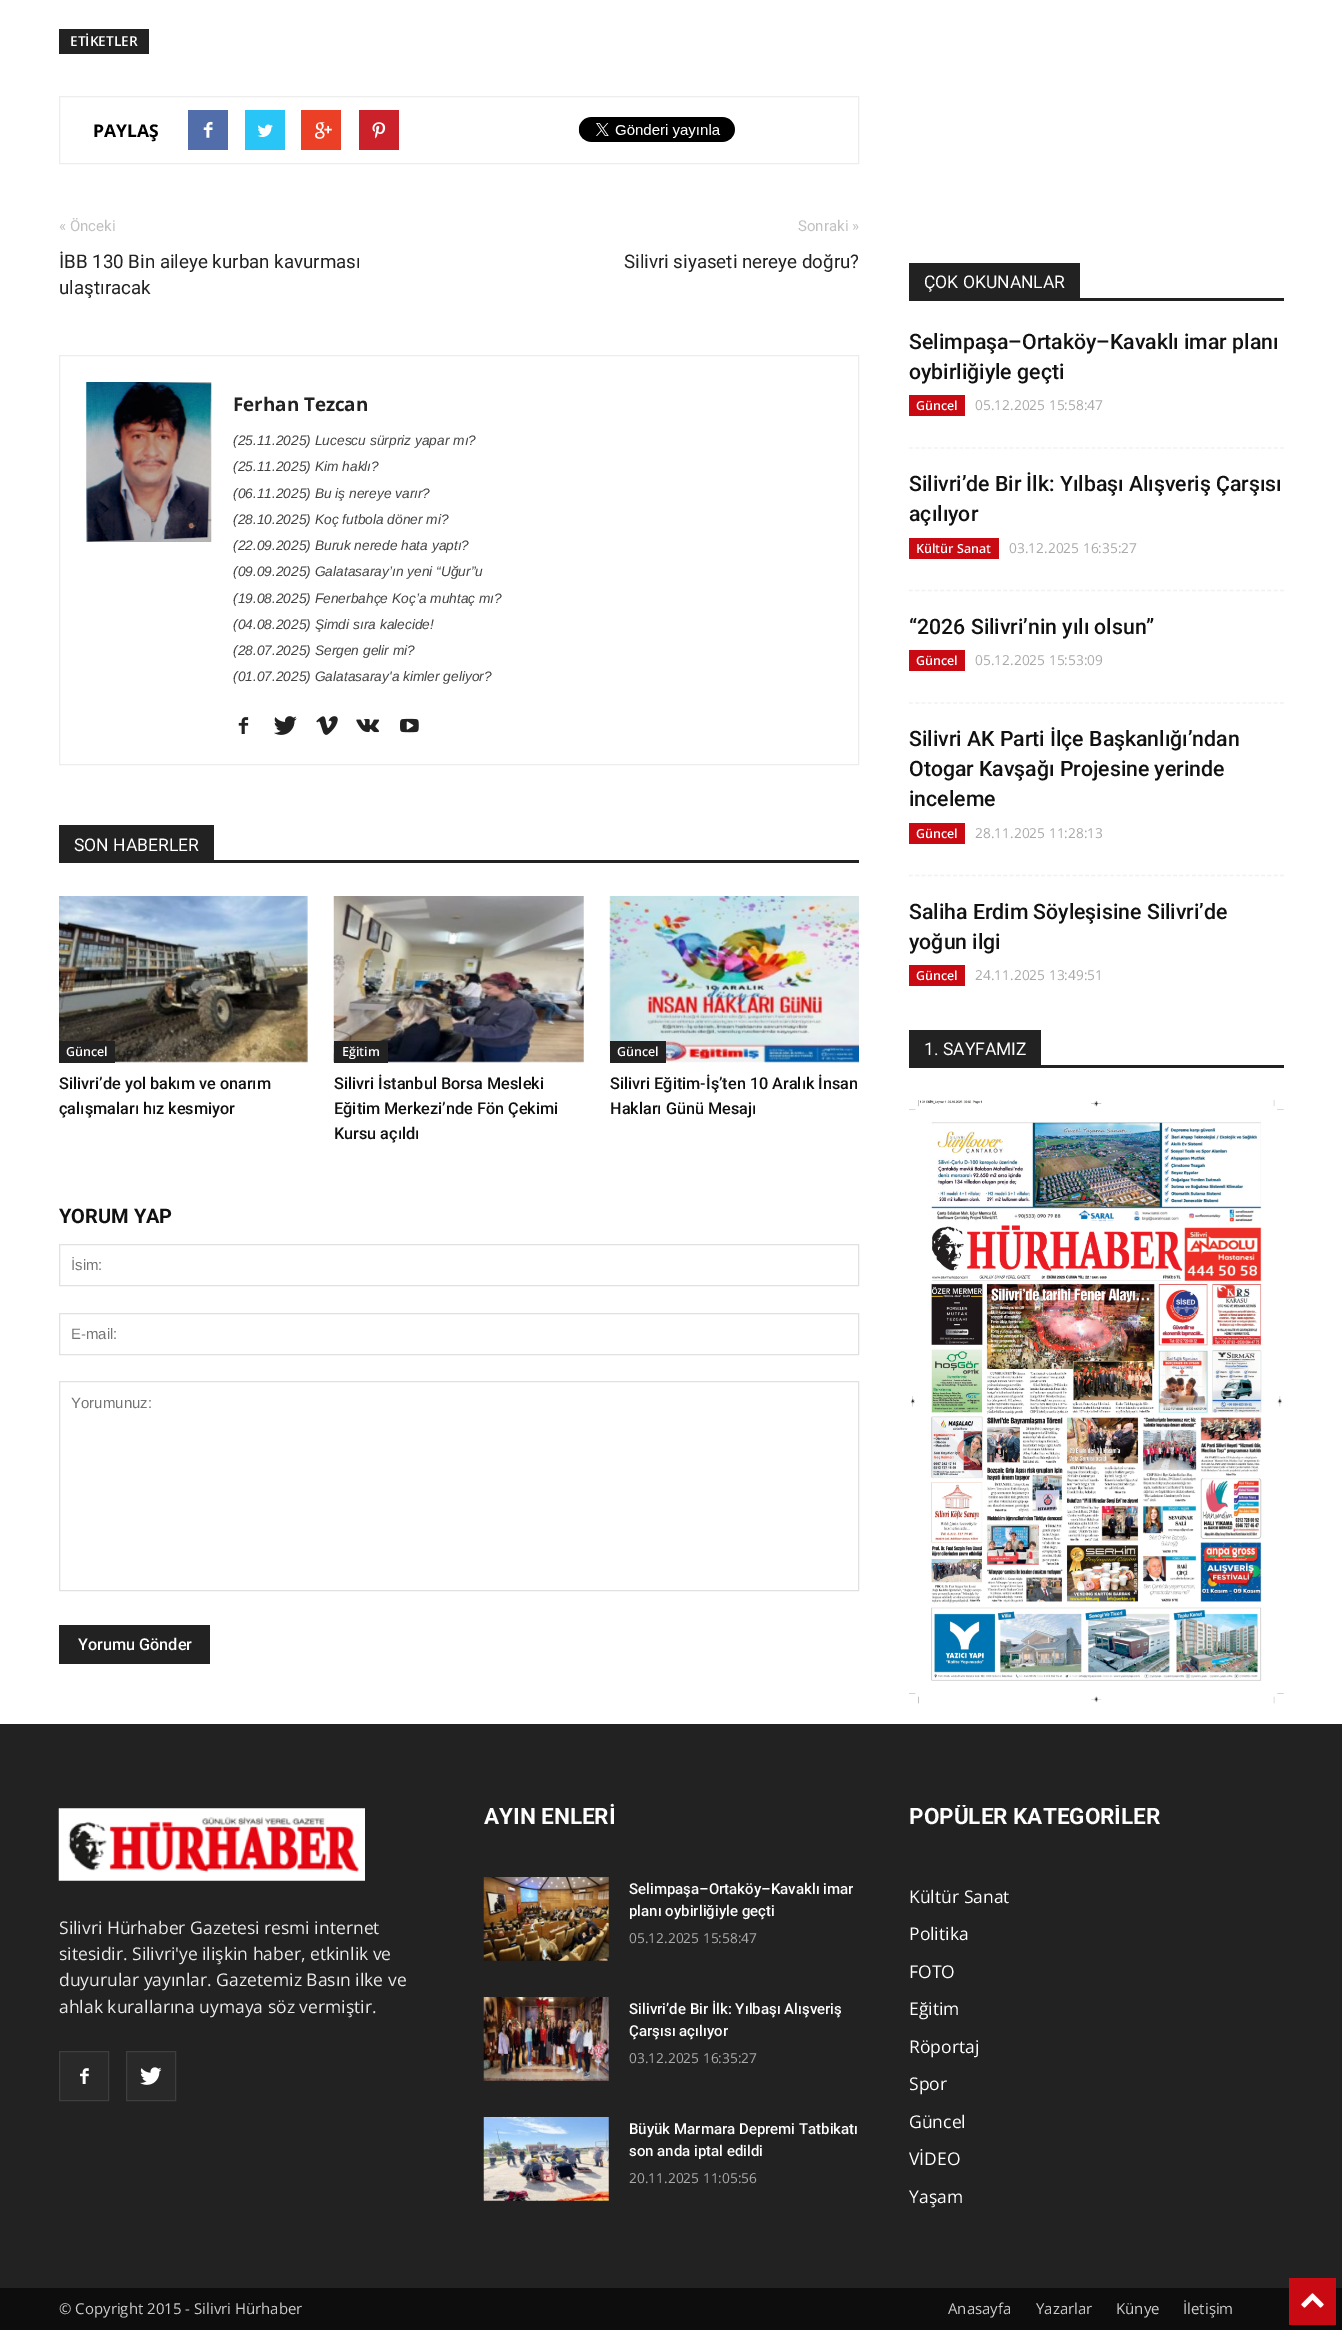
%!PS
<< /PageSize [1342 2330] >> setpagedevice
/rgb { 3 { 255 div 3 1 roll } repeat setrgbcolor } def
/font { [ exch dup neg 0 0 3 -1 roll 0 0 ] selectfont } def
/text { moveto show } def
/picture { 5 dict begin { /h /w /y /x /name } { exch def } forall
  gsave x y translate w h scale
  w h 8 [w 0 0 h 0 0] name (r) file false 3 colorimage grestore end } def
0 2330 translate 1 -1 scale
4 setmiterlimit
255 255 255 rgb
0 0 1342 2330 rectfill
34 34 34 rgb
59 29 90 25 rectfill
237 237 237 rgb
59.5 96.5 799 67 rectstroke
81 110 171 rgb
188 110 40 40 rectfill
(img_01.rgb) 203 121 10 17 picture
41 197 246 rgb
245 110 40 40 rectfill
(img_02.rgb) 257 124 16 13 picture
235 64 38 rgb
301 110 40 40 rectfill
(img_03.rgb) 315 122 17 17 picture
202 33 42 rgb
359 110 40 40 rectfill
(img_04.rgb) 372 122 14 17 picture
(img_05.rgb) 578 117 157 25 picture
237 237 237 rgb
59.5 355.5 799 409 rectstroke
(img_06.rgb) 86 382 126 160 picture
(img_07.rgb) 238 717 11 17 picture
(img_08.rgb) 274 716 23 19 picture
(img_09.rgb) 316 716 22 19 picture
(img_10.rgb) 356 719 24 14 picture
(img_11.rgb) 400 718 19 15 picture
34 34 34 rgb
59 860 800 3 rectfill
59 825 155 35 rectfill
(img_12.rgb) 59 896 249 167 picture
59 1041 56 22 rectfill
(img_13.rgb) 333 896 251 167 picture
334 1041 54 22 rectfill
(img_14.rgb) 609 896 250 167 picture
610 1041 56 22 rectfill
225 225 225 rgb
59.5 1244.5 799 41 rectstroke
59.5 1313.5 799 41 rectstroke
59.5 1381.5 799 209 rectstroke
34 34 34 rgb
59 1625 151 39 rectfill
909 298 375 3 rectfill
909 263 171 35 rectfill
242 242 242 rgb
1.2 setlinewidth
[3.75 2.54] 0 setdash
909 448 moveto 375 0 rlineto stroke
202 10 19 rgb
909 395 56 21 rectfill
242 242 242 rgb
909 590.5 moveto 375 0 rlineto stroke
202 10 19 rgb
909 538 90 21 rectfill
242 242 242 rgb
909 703 moveto 375 0 rlineto stroke
202 10 19 rgb
909 650 56 21 rectfill
242 242 242 rgb
909 875.5 moveto 375 0 rlineto stroke
202 10 19 rgb
909 823 56 21 rectfill
909 965 56 21 rectfill
34 34 34 rgb
909 1065 375 3 rectfill
909 1030 132 35 rectfill
(img_15.rgb) 909 1100 375 604 picture
0 1724 1342 564 rectfill
(img_16.rgb) 58 1808 307 73 picture
41 41 41 rgb
59.5 2051.5 moveto 49 0 rlineto 0 49 rlineto -49 0 rlineto closepath gsave fill grestore
62 62 62 rgb
1 setlinewidth
[] 0 setdash
stroke
(img_17.rgb) 80 2068 9 16 picture
41 41 41 rgb
126.5 2051.5 moveto 49 0 rlineto 0 49 rlineto -49 0 rlineto closepath gsave fill grestore
62 62 62 rgb
stroke
(img_18.rgb) 140 2067 22 18 picture
(img_19.rgb) 483 1877 126 84 picture
(img_20.rgb) 483 1997 126 84 picture
(img_21.rgb) 483 2117 126 84 picture
13 13 13 rgb
0 2288 1342 42 rectfill
202 10 19 rgb
1289 2278 47 47 rectfill
(img_22.rgb) 1301 2293 23 15 picture
/OpenSans-SemiBold 13.75 font
255 255 255 rgb
(ETİKETLER) 70 46 text
/OpenSans-Bold 17.5 font
0 0 0 rgb
(PAYLAŞ) 93 137 text
/Roboto-Regular 15 font
193 193 193 rgb
(« Önceki) 59 231 text
/Roboto-Regular 18.75 font
34 34 34 rgb
(İBB 130 Bin aileye kurban kavurması) 59 268 text
(ulaştıracak) 59 294 text
/Roboto-Regular 15 font
193 193 193 rgb
(Sonraki ») 798 231 text
/Roboto-Regular 18.75 font
34 34 34 rgb
(Silivri siyaseti nereye doğru?) 624 268 text
/OpenSans-Bold 18.75 font
(Ferhan Tezcan) 233 411 text
/LiberationSans-Italic 13.75 font
68 68 68 rgb
(\(25.11.2025\) Lucescu sürpriz yapar mı?) 233 445 text
(\(25.11.2025\) Kim haklı?) 233 471 text
(\(06.11.2025\) Bu iş nereye varır?) 233 498 text
(\(28.10.2025\) Koç futbola döner mi?) 233 524 text
(\(22.09.2025\) Buruk nerede hata yaptı?) 233 550 text
(\(09.09.2025\) Galatasaray’ın yeni “Uğur”u) 233 576 text
(\(19.08.2025\) Fenerbahçe Koç’a muhtaç mı?) 233 603 text
(\(04.08.2025\) Şimdi sıra kalecide!) 233 629 text
(\(28.07.2025\) Sergen gelir mi?) 233 655 text
(\(01.07.2025\) Galatasaray'a kimler geliyor?) 233 681 text
/Roboto-Regular 17.5 font
255 255 255 rgb
(SON HABERLER) 74 851 text
/OpenSans-SemiBold 12.5 font
(Güncel) 66 1056 text
/Roboto-Medium 16.25 font
17 17 17 rgb
(Silivri’de yol bakım ve onarım) 59 1089 text
(çalışmaları hız kesmiyor) 59 1114 text
/OpenSans-SemiBold 12.5 font
255 255 255 rgb
(Eğitim) 342 1056 text
/Roboto-Medium 16.25 font
17 17 17 rgb
(Silivri İstanbul Borsa Mesleki) 334 1089 text
(Eğitim Merkezi’nde Fön Çekimi) 334 1114 text
(Kursu açıldı) 334 1139 text
/OpenSans-SemiBold 12.5 font
255 255 255 rgb
(Güncel) 617 1056 text
/Roboto-Medium 16.25 font
17 17 17 rgb
(Silivri Eğitim-İş’ten 10 Aralık İnsan) 610 1089 text
(Hakları Günü Mesajı) 610 1114 text
/Roboto-Bold 20 font
(YORUM YAP) 59 1223 text
/LiberationSans-Regular 15 font
117 117 117 rgb
(İsim:) 71 1270 text
(E-mail:) 71 1339 text
(Yorumunuz:) 71 1408 text
/Roboto-Medium 16.25 font
255 255 255 rgb
(Yorumu Gönder) 78 1650 text
/Roboto-Regular 17.5 font
(ÇOK OKUNANLAR) 924 288 text
/Roboto-Medium 21.25 font
17 17 17 rgb
(Selimpaşa–Ortaköy–Kavaklı imar planı) 909 349 text
(oybirliğiyle geçti) 909 379 text
/OpenSans-SemiBold 12.5 font
255 255 255 rgb
(Güncel) 916 410 text
/OpenSans-Regular 13.75 font
170 170 170 rgb
(05.12.2025 15:58:47) 975 410 text
/Roboto-Medium 21.25 font
17 17 17 rgb
(Silivri’de Bir İlk: Yılbaşı Alışveriş Çarşısı) 909 491 text
(açılıyor) 909 521 text
/OpenSans-SemiBold 12.5 font
255 255 255 rgb
(Kültür Sanat) 916 553 text
/OpenSans-Regular 13.75 font
170 170 170 rgb
(03.12.2025 16:35:27) 1009 553 text
/Roboto-Medium 21.25 font
17 17 17 rgb
(“2026 Silivri’nin yılı olsun”) 909 634 text
/OpenSans-SemiBold 12.5 font
255 255 255 rgb
(Güncel) 916 665 text
/OpenSans-Regular 13.75 font
170 170 170 rgb
(05.12.2025 15:53:09) 975 665 text
/Roboto-Medium 21.25 font
17 17 17 rgb
(Silivri AK Parti İlçe Başkanlığı’ndan) 909 746 text
(Otogar Kavşağı Projesine yerinde) 909 776 text
(inceleme) 909 806 text
/OpenSans-SemiBold 12.5 font
255 255 255 rgb
(Güncel) 916 838 text
/OpenSans-Regular 13.75 font
170 170 170 rgb
(28.11.2025 11:28:13) 975 838 text
/Roboto-Medium 21.25 font
17 17 17 rgb
(Saliha Erdim Söyleşisine Silivri’de) 909 919 text
(yoğun ilgi) 909 949 text
/OpenSans-SemiBold 12.5 font
255 255 255 rgb
(Güncel) 916 980 text
/OpenSans-Regular 13.75 font
170 170 170 rgb
(24.11.2025 13:49:51) 975 980 text
/Roboto-Regular 17.5 font
255 255 255 rgb
(1. SAYFAMIZ) 924 1055 text
/OpenSans-Regular 17.5 font
234 234 234 rgb
(Silivri Hürhaber Gazetesi resmi internet) 59 1934 text
(sitesidir. Silivri'ye ilişkin haber, etkinlik ve) 59 1960 text
(duyurular yayınlar. Gazetemiz Basın ilke ve) 59 1986 text
(ahlak kurallarına uymaya söz vermiştir.) 59 2013 text
/Roboto-Bold 22.5 font
255 255 255 rgb
(AYIN ENLERİ) 484 1824 text
/Roboto-Medium 15 font
(Selimpaşa–Ortaköy–Kavaklı imar) 629 1894 text
(planı oybirliğiyle geçti) 629 1916 text
/OpenSans-Regular 13.75 font
170 170 170 rgb
(05.12.2025 15:58:47) 629 1943 text
/Roboto-Medium 15 font
255 255 255 rgb
(Silivri’de Bir İlk: Yılbaşı Alışveriş) 629 2014 text
(Çarşısı açılıyor) 629 2036 text
/OpenSans-Regular 13.75 font
170 170 170 rgb
(03.12.2025 16:35:27) 629 2063 text
/Roboto-Medium 15 font
255 255 255 rgb
(Büyük Marmara Depremi Tatbikatı) 629 2134 text
(son anda iptal edildi) 629 2156 text
/OpenSans-Regular 13.75 font
170 170 170 rgb
(20.11.2025 11:05:56) 629 2183 text
gsave
909 1805 375 410 rectclip
/Roboto-Bold 22.5 font
255 255 255 rgb
(POPÜLER KATEGORİLER) 909 1824 text
grestore
/OpenSans-Regular 17.5 font
255 255 255 rgb
(Kültür Sanat) 909 1903 text
(Politika) 909 1940 text
(FOTO) 909 1978 text
(Eğitim) 909 2015 text
(Röportaj) 909 2053 text
(Spor) 909 2090 text
(Güncel) 909 2128 text
(VİDEO) 909 2165 text
(Yaşam) 909 2203 text
/OpenSans-Regular 15 font
204 204 204 rgb
(© Copyright 2015 - Silivri Hürhaber) 59 2314 text
(Anasayfa) 948 2314 text
(Yazarlar) 1036 2314 text
(Künye) 1116 2314 text
(İletişim) 1183 2314 text
showpage
